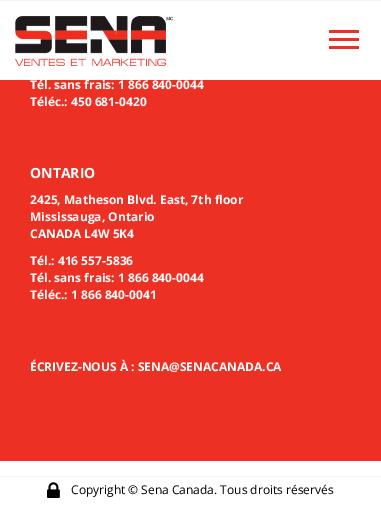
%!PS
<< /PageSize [381 515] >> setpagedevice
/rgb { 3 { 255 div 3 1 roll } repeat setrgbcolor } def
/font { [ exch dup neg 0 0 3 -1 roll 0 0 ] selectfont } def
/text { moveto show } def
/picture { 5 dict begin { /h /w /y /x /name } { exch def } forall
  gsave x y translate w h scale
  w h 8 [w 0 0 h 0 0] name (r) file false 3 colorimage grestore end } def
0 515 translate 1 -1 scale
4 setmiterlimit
255 255 255 rgb
0 0 381 515 rectfill
243 243 243 rgb
0 0 381 1 rectfill
(img_01.rgb) 15 16 158 50 picture
236 49 36 rgb
329 38 30 3 rectfill
329 30 30 3 rectfill
329 46 30 3 rectfill
0 80 381 381 rectfill
243 243 243 rgb
0 476 381 1 rectfill
(img_02.rgb) 47 482 13 16 picture
/OpenSans-Bold 12 font
255 255 255 rgb
(Tél. sans frais: 1 866 840-0044) 30 89 text
(Téléc.: 450 681-0420) 30 106 text
/OpenSans-Bold 14 font
(ONTARIO) 30 178 text
/OpenSans-Bold 12 font
(2425, Matheson Blvd. East, 7th floor) 30 204 text
(Mississauga, Ontario) 30 221 text
(CANADA L4W 5K4) 30 238 text
(Tél.: 416 557-5836) 30 265 text
(Tél. sans frais: 1 866 840-0044) 30 282 text
(Téléc.: 1 866 840-0041) 30 299 text
(ÉCRIVEZ-NOUS À : SENA@SENACANADA.CA) 30 371 text
/OpenSans-Regular 12 font
0 0 0 rgb
(Copyright © Sena Canada. Tous droits réservés) 71 494 text
showpage
